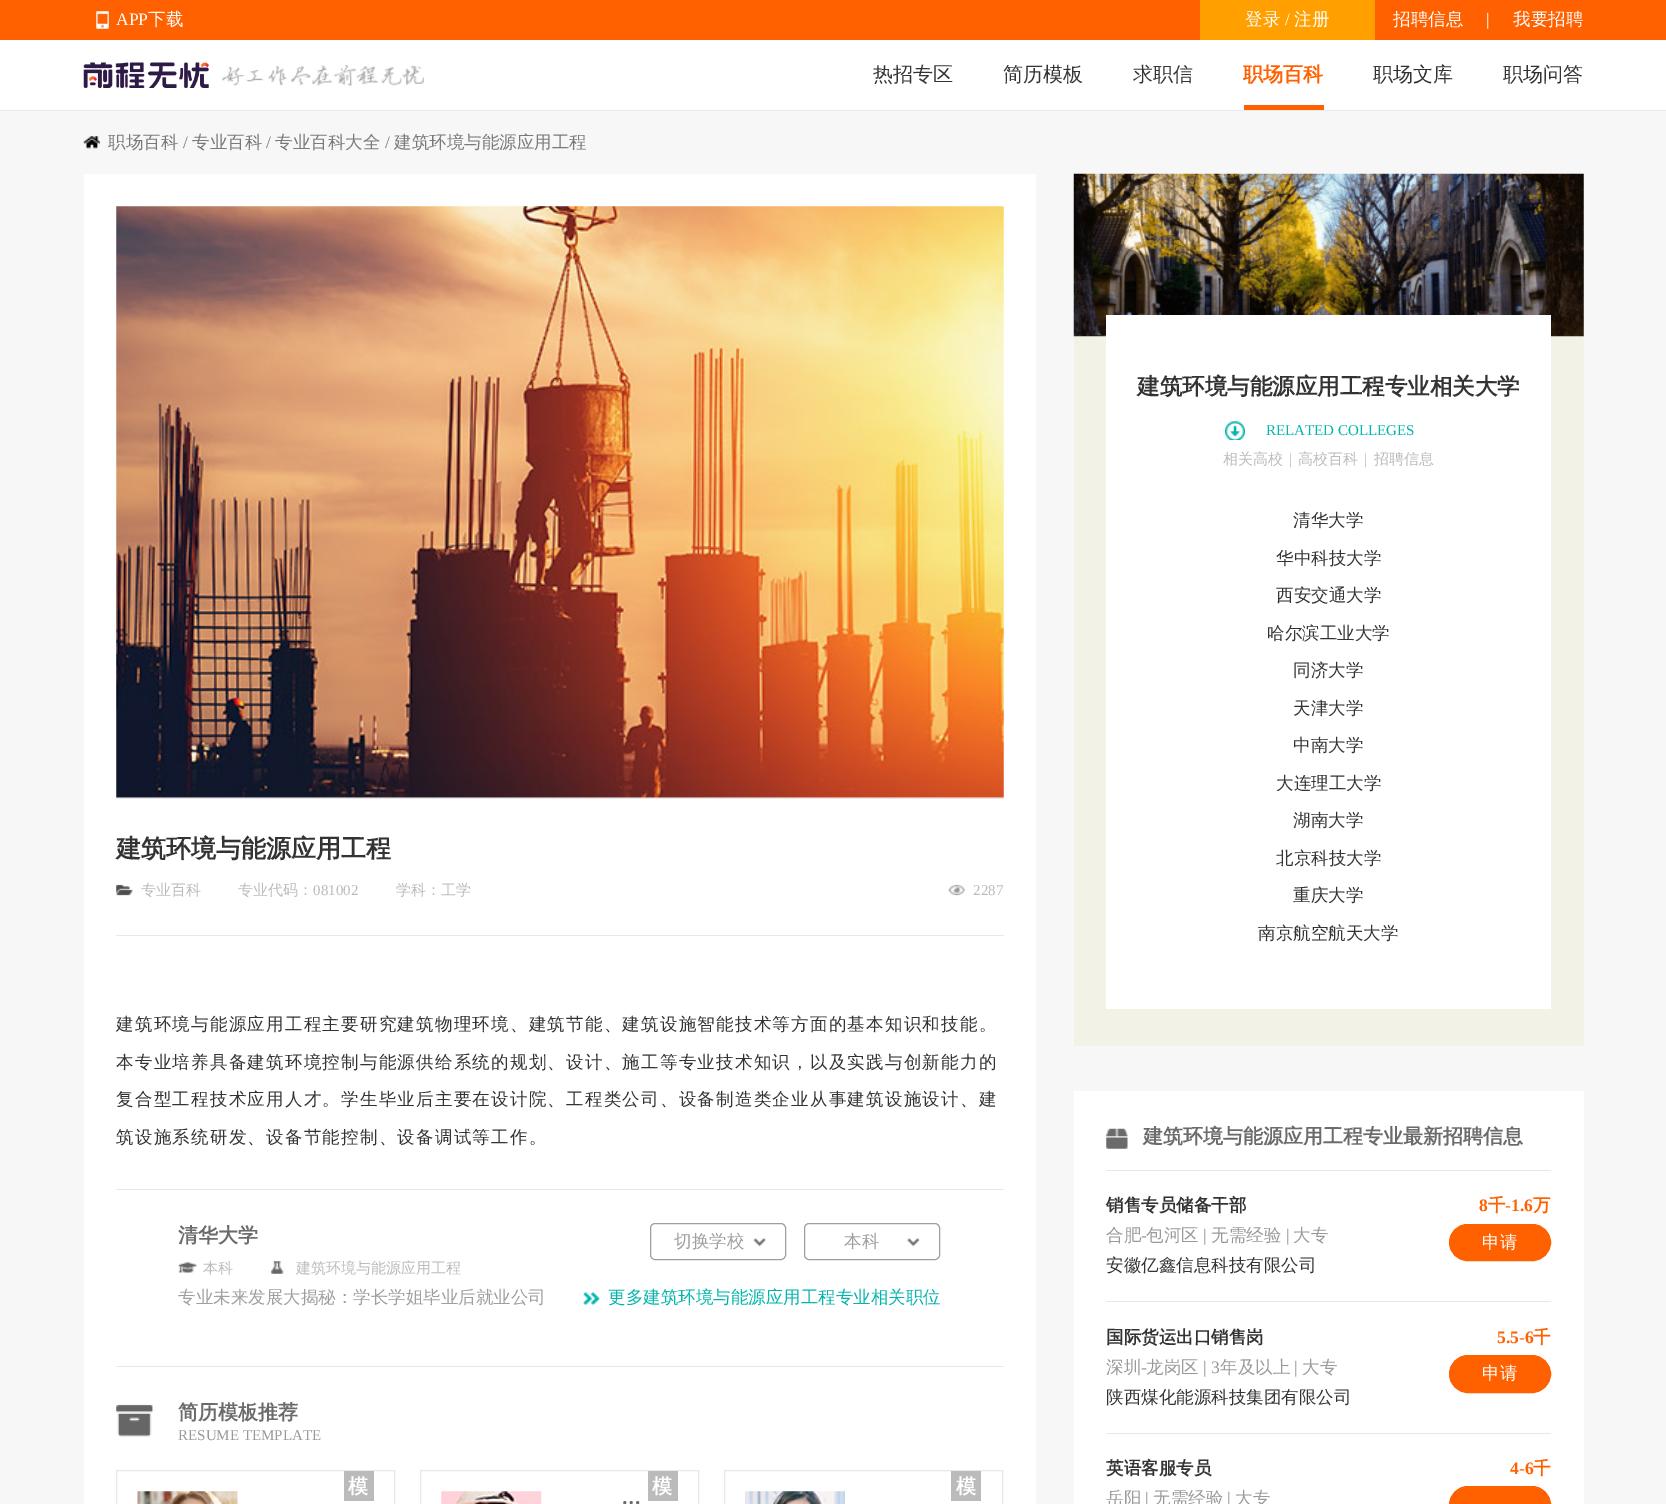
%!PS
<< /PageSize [1666 1504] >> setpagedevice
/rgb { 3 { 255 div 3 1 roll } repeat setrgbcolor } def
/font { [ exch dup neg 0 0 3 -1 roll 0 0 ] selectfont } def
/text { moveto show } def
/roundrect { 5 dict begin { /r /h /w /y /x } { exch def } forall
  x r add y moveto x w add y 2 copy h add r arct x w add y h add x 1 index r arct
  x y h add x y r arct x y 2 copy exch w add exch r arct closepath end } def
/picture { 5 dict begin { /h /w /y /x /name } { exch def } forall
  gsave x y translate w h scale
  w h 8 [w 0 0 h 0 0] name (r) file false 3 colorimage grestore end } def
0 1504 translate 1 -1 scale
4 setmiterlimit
255 255 255 rgb
0 0 1666 1504 rectfill
255 96 0 rgb
0 0 1666 40 rectfill
(img_01.rgb) 96 11 13 18 picture
255 160 0 rgb
1200 0 175 40 rectfill
232 232 232 rgb
0 110 1666 1 rectfill
(img_02.rgb) 83 62 126 26 picture
(img_03.rgb) 221 65 203 22 picture
255 96 0 rgb
1244 105 80 5 rectfill
247 247 247 rgb
0 111 1666 1393 rectfill
(img_04.rgb) 83 136 17 13 picture
255 255 255 rgb
84 174 952 1330 rectfill
(img_05.rgb) 116 206 888 592 picture
232 232 232 rgb
116 798 888 1 rectfill
(img_06.rgb) 116 884 17 12 picture
(img_07.rgb) 948 884 17 12 picture
116 935 888 1 rectfill
116 1189 888 1 rectfill
159 159 159 rgb
650.5 1223.5 135 36 4.5 roundrect stroke
(img_08.rgb) 753 1237 13 10 picture
804.5 1223.5 135 36 4.5 roundrect stroke
(img_09.rgb) 907 1237 13 10 picture
(img_10.rgb) 178 1262 20 11 picture
(img_11.rgb) 271 1261 13 13 picture
(img_12.rgb) 583 1292 17 14 picture
232 232 232 rgb
116 1366 888 1 rectfill
(img_13.rgb) 116 1404 37 33 picture
116.5 1470.5 278 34 rectstroke
187 187 187 rgb
344 1471 30 30 rectfill
(img_14.rgb) 137 1491 101 13 picture
232 232 232 rgb
420.5 1470.5 278 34 rectstroke
187 187 187 rgb
648 1471 30 30 rectfill
(img_15.rgb) 441 1491 101 13 picture
232 232 232 rgb
724.5 1470.5 278 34 rectstroke
187 187 187 rgb
951 1471 30 30 rectfill
(img_16.rgb) 745 1491 100 13 picture
243 242 231 rgb
1074 174 510 872 rectfill
(img_17.rgb) 1073 173 511 164 picture
255 255 255 rgb
1106 315 445 694 rectfill
(img_18.rgb) 1225 421 20 19 picture
1074 1091 510 413 rectfill
(img_19.rgb) 1106 1128 22 21 picture
232 232 232 rgb
1106 1170 445 1 rectfill
255 96 0 rgb
1449.5 1224.5 101 36 18 roundrect gsave fill grestore
stroke
232 232 232 rgb
1106 1301 445 1 rectfill
255 96 0 rgb
1449.5 1355.5 101 37 18.5 roundrect gsave fill grestore
stroke
232 232 232 rgb
1106 1433 445 1 rectfill
255 96 0 rgb
1449.5 1486.5 101 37 18.5 roundrect gsave fill grestore
stroke
/LiberationSerif-Regular 17.5 font
255 255 255 rgb
(APP) 116 25 text
/WenQuanYiZenHei-Medium 17.5 font
(下载) 148 25 text
(登录) 1245 25 text
/LiberationSerif-Regular 17.5 font
(/) 1285 25 text
/WenQuanYiZenHei-Medium 17.5 font
(注册) 1294 25 text
(招聘信息) 1393 25 text
/LiberationSerif-Regular 17.5 font
(|) 1486 25 text
/WenQuanYiZenHei-Medium 17.5 font
(我要招聘) 1513 25 text
/WenQuanYiZenHei-Medium 20 font
51 51 51 rgb
(热招专区) 873 81 text
(简历模板) 1003 81 text
(求职信) 1133 81 text
/WenQuanYiZenHei-Bold 20 font
255 96 0 rgb
(职场百科) 1243 81 text
/WenQuanYiZenHei-Medium 20 font
51 51 51 rgb
(职场文库) 1373 81 text
(职场问答) 1503 81 text
/WenQuanYiZenHei-Medium 17.5 font
121 121 121 rgb
(职场百科) 108 148 text
/LiberationSerif-Regular 17.5 font
(/) 183 148 text
/WenQuanYiZenHei-Medium 17.5 font
(专业百科) 192 148 text
/LiberationSerif-Regular 17.5 font
(/) 266 148 text
/WenQuanYiZenHei-Medium 17.5 font
(专业百科大全) 275 148 text
/LiberationSerif-Regular 17.5 font
(/) 385 148 text
/WenQuanYiZenHei-Medium 17.5 font
(建筑环境与能源应用工程) 394 148 text
/WenQuanYiZenHei-Bold 25 font
51 51 51 rgb
(建筑环境与能源应用工程) 116 857 text
/WenQuanYiZenHei-Medium 15 font
187 187 187 rgb
(专业百科) 141 895 text
(专业代码：) 238 895 text
/LiberationSerif-Regular 15 font
(081002) 313 895 text
/WenQuanYiZenHei-Medium 15 font
(学科：工学) 396 895 text
/LiberationSerif-Regular 15 font
(2287) 973 895 text
/WenQuanYiZenHei-Medium 17.5 font
51 51 51 rgb
116 1030 moveto 1.25 0 (建筑环境与能源应用工程主要研究建筑物理环境、建筑节能、建筑设施智能技术等方面的基本知识和技能。) ashow
116 1068 moveto 1.25 0 (本专业培养具备建筑环境控制与能源供给系统的规划、设计、施工等专业技术知识，以及实践与创新能力的) ashow
116 1105 moveto 1.25 0 (复合型工程技术应用人才。学生毕业后主要在设计院、工程类公司、设备制造类企业从事建筑设施设计、建) ashow
116 1143 moveto 1.25 0 (筑设施系统研发、设备节能控制、设备调试等工作。) ashow
/WenQuanYiZenHei-Bold 20 font
107 107 107 rgb
(清华大学) 178 1242 text
/WenQuanYiZenHei-Medium 17.5 font
159 159 159 rgb
(切换学校) 674 1247 text
(本科) 844 1247 text
/WenQuanYiZenHei-Medium 15 font
187 187 187 rgb
(本科) 203 1273 text
(建筑环境与能源应用工程) 296 1273 text
/WenQuanYiZenHei-Medium 17.5 font
159 159 159 rgb
(专业未来发展大揭秘：学长学姐毕业后就业公司) 178 1303 text
0 181 173 rgb
(更多建筑环境与能源应用工程专业相关职位) 608 1303 text
/WenQuanYiZenHei-Bold 20 font
107 107 107 rgb
(简历模板推荐) 178 1419 text
/LiberationSerif-Regular 15 font
153 153 153 rgb
(RESUME TEMPLATE) 178 1440 text
/WenQuanYiZenHei-Bold 20 font
255 255 255 rgb
(模) 348 1493 text
(模) 652 1493 text
107 107 107 rgb
(…) 621 1510 text
255 255 255 rgb
(模) 956 1493 text
/WenQuanYiZenHei-Bold 22.5 font
51 51 51 rgb
(建筑环境与能源应用工程专业相关大学) 1137 394 text
/LiberationSerif-Regular 15 font
0 181 173 rgb
(RELATED COLLEGES) 1266 435 text
/WenQuanYiZenHei-Medium 15 font
187 187 187 rgb
(相关高校) 1223 464 text
/LiberationSerif-Regular 15 font
(|) 1289 464 text
/WenQuanYiZenHei-Medium 15 font
(高校百科) 1298 464 text
/LiberationSerif-Regular 15 font
(|) 1364 464 text
/WenQuanYiZenHei-Medium 15 font
(招聘信息) 1374 464 text
/WenQuanYiZenHei-Medium 17.5 font
51 51 51 rgb
(清华大学) 1293 526 text
(华中科技大学) 1276 564 text
(西安交通大学) 1276 601 text
(哈尔滨工业大学) 1267 639 text
(同济大学) 1293 676 text
(天津大学) 1293 714 text
(中南大学) 1293 751 text
(大连理工大学) 1276 789 text
(湖南大学) 1293 826 text
(北京科技大学) 1276 864 text
(重庆大学) 1293 901 text
(南京航空航天大学) 1258 939 text
/WenQuanYiZenHei-Bold 20 font
107 107 107 rgb
(建筑环境与能源应用工程专业最新招聘信息) 1143 1143 text
/WenQuanYiZenHei-Bold 17.5 font
51 51 51 rgb
(销售专员储备干部) 1106 1211 text
/LiberationSerif-Bold 17.5 font
255 96 0 rgb
(8) 1479 1211 text
/WenQuanYiZenHei-Bold 17.5 font
(千) 1488 1211 text
/LiberationSerif-Bold 17.5 font
(-1.6) 1505 1211 text
/WenQuanYiZenHei-Bold 17.5 font
(万) 1533 1211 text
/WenQuanYiZenHei-Medium 17.5 font
153 153 153 rgb
(合肥) 1106 1241 text
/LiberationSerif-Regular 17.5 font
(-) 1141 1241 text
/WenQuanYiZenHei-Medium 17.5 font
(包河区) 1146 1241 text
/LiberationSerif-Regular 17.5 font
(|) 1203 1241 text
/WenQuanYiZenHei-Medium 17.5 font
(无需经验) 1211 1241 text
/LiberationSerif-Regular 17.5 font
(|) 1286 1241 text
/WenQuanYiZenHei-Medium 17.5 font
(大专) 1293 1241 text
255 255 255 rgb
(申请) 1482 1248 text
51 51 51 rgb
(安徽亿鑫信息科技有限公司) 1106 1271 text
/WenQuanYiZenHei-Bold 17.5 font
(国际货运出口销售岗) 1106 1343 text
/LiberationSerif-Bold 17.5 font
255 96 0 rgb
(5.5-6) 1497 1343 text
/WenQuanYiZenHei-Bold 17.5 font
(千) 1533 1343 text
/WenQuanYiZenHei-Medium 17.5 font
153 153 153 rgb
(深圳) 1106 1373 text
/LiberationSerif-Regular 17.5 font
(-) 1141 1373 text
/WenQuanYiZenHei-Medium 17.5 font
(龙岗区) 1146 1373 text
/LiberationSerif-Regular 17.5 font
(| 3) 1203 1373 text
/WenQuanYiZenHei-Medium 17.5 font
(年及以上) 1220 1373 text
/LiberationSerif-Regular 17.5 font
(|) 1294 1373 text
/WenQuanYiZenHei-Medium 17.5 font
(大专) 1302 1373 text
255 255 255 rgb
(申请) 1482 1379 text
51 51 51 rgb
(陕西煤化能源科技集团有限公司) 1106 1403 text
/WenQuanYiZenHei-Bold 17.5 font
(英语客服专员) 1106 1474 text
/LiberationSerif-Bold 17.5 font
255 96 0 rgb
(4-6) 1510 1474 text
/WenQuanYiZenHei-Bold 17.5 font
(千) 1533 1474 text
/WenQuanYiZenHei-Medium 17.5 font
153 153 153 rgb
(岳阳) 1106 1504 text
/LiberationSerif-Regular 17.5 font
(|) 1145 1504 text
/WenQuanYiZenHei-Medium 17.5 font
(无需经验) 1153 1504 text
/LiberationSerif-Regular 17.5 font
(|) 1227 1504 text
/WenQuanYiZenHei-Medium 17.5 font
(大专) 1235 1504 text
showpage
